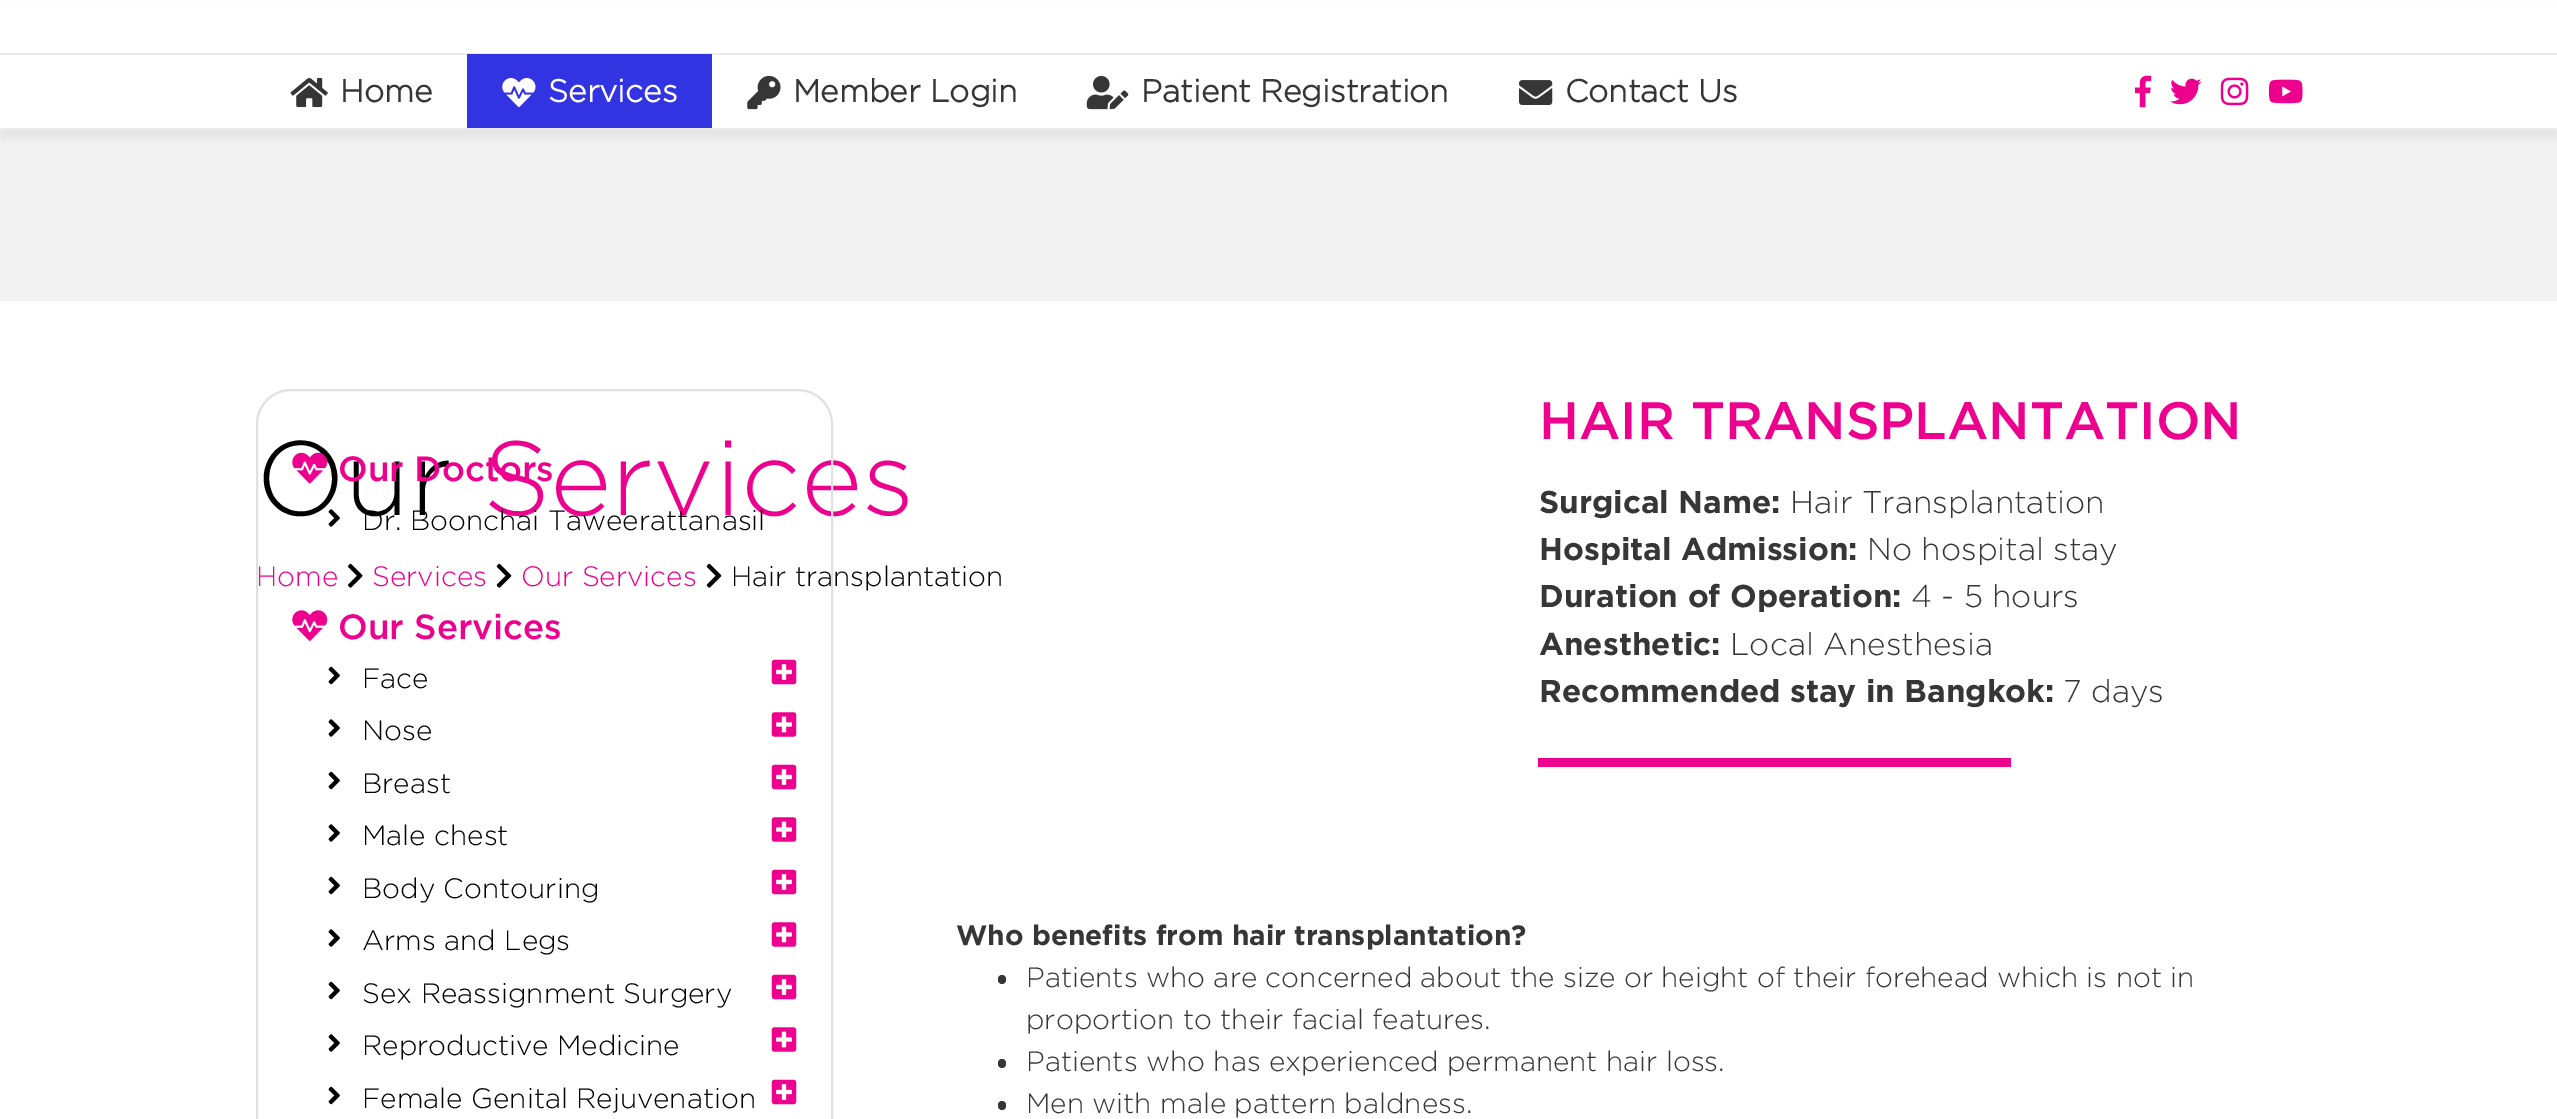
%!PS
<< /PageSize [2557 1119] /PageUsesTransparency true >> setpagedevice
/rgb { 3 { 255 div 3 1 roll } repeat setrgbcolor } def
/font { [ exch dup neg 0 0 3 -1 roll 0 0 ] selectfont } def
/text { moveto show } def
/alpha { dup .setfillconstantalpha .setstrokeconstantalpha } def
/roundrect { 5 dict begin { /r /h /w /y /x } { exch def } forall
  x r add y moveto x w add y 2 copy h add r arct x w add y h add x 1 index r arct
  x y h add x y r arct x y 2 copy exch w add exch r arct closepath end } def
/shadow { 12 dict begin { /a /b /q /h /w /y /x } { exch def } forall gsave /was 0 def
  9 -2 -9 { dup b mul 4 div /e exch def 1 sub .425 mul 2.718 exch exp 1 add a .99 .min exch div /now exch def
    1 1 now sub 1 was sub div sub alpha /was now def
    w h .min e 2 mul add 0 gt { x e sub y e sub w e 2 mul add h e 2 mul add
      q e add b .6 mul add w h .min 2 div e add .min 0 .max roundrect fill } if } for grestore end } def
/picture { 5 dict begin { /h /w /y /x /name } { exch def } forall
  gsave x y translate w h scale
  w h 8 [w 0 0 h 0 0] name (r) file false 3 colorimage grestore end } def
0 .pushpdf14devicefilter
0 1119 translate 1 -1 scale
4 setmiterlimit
255 255 255 rgb
0 0 2557 1119 rectfill
242 242 242 rgb
0 130 2557 171 rectfill
0 0 0 rgb
0 9 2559 129 0 4.5 0.05 shadow
255 255 255 rgb
0 5 2557 123 rectfill
235 235 235 rgb
0 53 2557 2 rectfill
0 128 2557 2 rectfill
(img_01.rgb) 290 78 38 30 picture
50 51 225 rgb
467 54 245 74 rectfill
(img_02.rgb) 502 78 34 30 picture
(img_03.rgb) 747 75 34 35 picture
(img_04.rgb) 1086 75 43 35 picture
(img_05.rgb) 1519 80 34 25 picture
(img_06.rgb) 2135 75 17 33 picture
(img_07.rgb) 2170 78 32 27 picture
(img_08.rgb) 2220 77 29 29 picture
(img_09.rgb) 2268 79 35 25 picture
237 0 142 rgb
1538 758 473 9 rectfill
54 54 54 rgb
998 975 8 9 4 roundrect fill
998 1059 8 9 4 roundrect fill
998 1101 8 9 4 roundrect fill
(img_16.rgb) 348 563 15 25 picture
(img_17.rgb) 496 563 16 25 picture
(img_17.rgb) 706 563 16 25 picture
/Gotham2-Bold 31.5 font
(Home) 340 102 text
255 255 255 rgb
(Services) 548 102 text
54 54 54 rgb
(Member Login) 793 102 text
(Patient Registration) 1141 102 text
(Contact Us) 1565 102 text
/Gotham-Medium 52.5 font
237 0 142 rgb
(HAIR TRANSPLANTATION) 1539 439 text
/Gotham-Bold 31.5 font
54 54 54 rgb
(Surgical Name:) 1539 513 text
/Gotham-Light 31.5 font
(Hair Transplantation) 1790 513 text
/Gotham-Bold 31.5 font
(Hospital Admission:) 1539 560 text
/Gotham-Light 31.5 font
(No hospital stay) 1867 560 text
/Gotham-Bold 31.5 font
(Duration of Operation:) 1539 607 text
/Gotham-Light 31.5 font
(4 - 5 hours) 1911 607 text
/Gotham-Bold 31.5 font
(Anesthetic:) 1539 655 text
/Gotham-Light 31.5 font
(Local Anesthesia) 1730 655 text
/Gotham-Bold 31.5 font
(Recommended stay in Bangkok:) 1539 702 text
/Gotham-Light 31.5 font
(7 days) 2063 702 text
/Gotham-Bold 28 font
(Who benefits from hair transplantation?) 956 945 text
/Gotham-Light 28 font
(Patients who are concerned about the size or height of their forehead which is not in) 1026 987 text
(proportion to their facial features.) 1026 1029 text
(Patients who has experienced permanent hair loss.) 1026 1071 text
(Men with male pattern baldness.) 1026 1113 text
/Gotham-Light 105 font
0 0 0 rgb
(Our) 256 515 text
237 0 142 rgb
(Services) 483 515 text
/Gotham-Light 28 font
(Home) 256 586 text
(Services) 372 586 text
(Our Services) 521 586 text
0 0 0 rgb
(Hair transplantation) 731 586 text
225 225 225 rgb
2 setlinewidth
257 390 575 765 34 roundrect stroke
(img_14.rgb) 771 1079 26 26 picture
(img_13.rgb) 328 1086 12 19 picture
0 0 0 rgb
(Female Genital Rejuvenation) 362 1108 text
(img_15.rgb) 771 1027 26 25 picture
(img_11.rgb) 328 1034 12 18 picture
(Reproductive Medicine) 362 1055 text
(img_14.rgb) 771 974 26 26 picture
(img_13.rgb) 328 981 12 19 picture
(Sex Reassignment Surgery) 362 1003 text
(img_15.rgb) 771 922 26 25 picture
(img_11.rgb) 328 929 12 18 picture
(Arms and Legs) 362 950 text
(img_14.rgb) 771 869 26 26 picture
(img_13.rgb) 328 876 12 19 picture
(Body Contouring) 362 898 text
(img_15.rgb) 771 817 26 25 picture
(img_11.rgb) 328 824 12 18 picture
(Male chest) 362 845 text
(img_14.rgb) 771 764 26 26 picture
(img_13.rgb) 328 771 12 19 picture
(Breast) 362 793 text
(img_15.rgb) 771 712 26 25 picture
(img_11.rgb) 328 719 12 18 picture
(Nose) 362 740 text
(img_14.rgb) 771 659 26 26 picture
(img_13.rgb) 328 666 12 19 picture
(Face) 362 688 text
(img_11.rgb) 328 509 12 18 picture
(Dr. Boonchai Taweerattanasil) 362 530 text
/Gotham-Medium 35 font
237 0 142 rgb
(Our Services) 338 639 text
(img_12.rgb) 292 610 36 31 picture
(Our Doctors) 338 481 text
(img_10.rgb) 292 452 36 32 picture
.poppdf14devicefilter showpage
